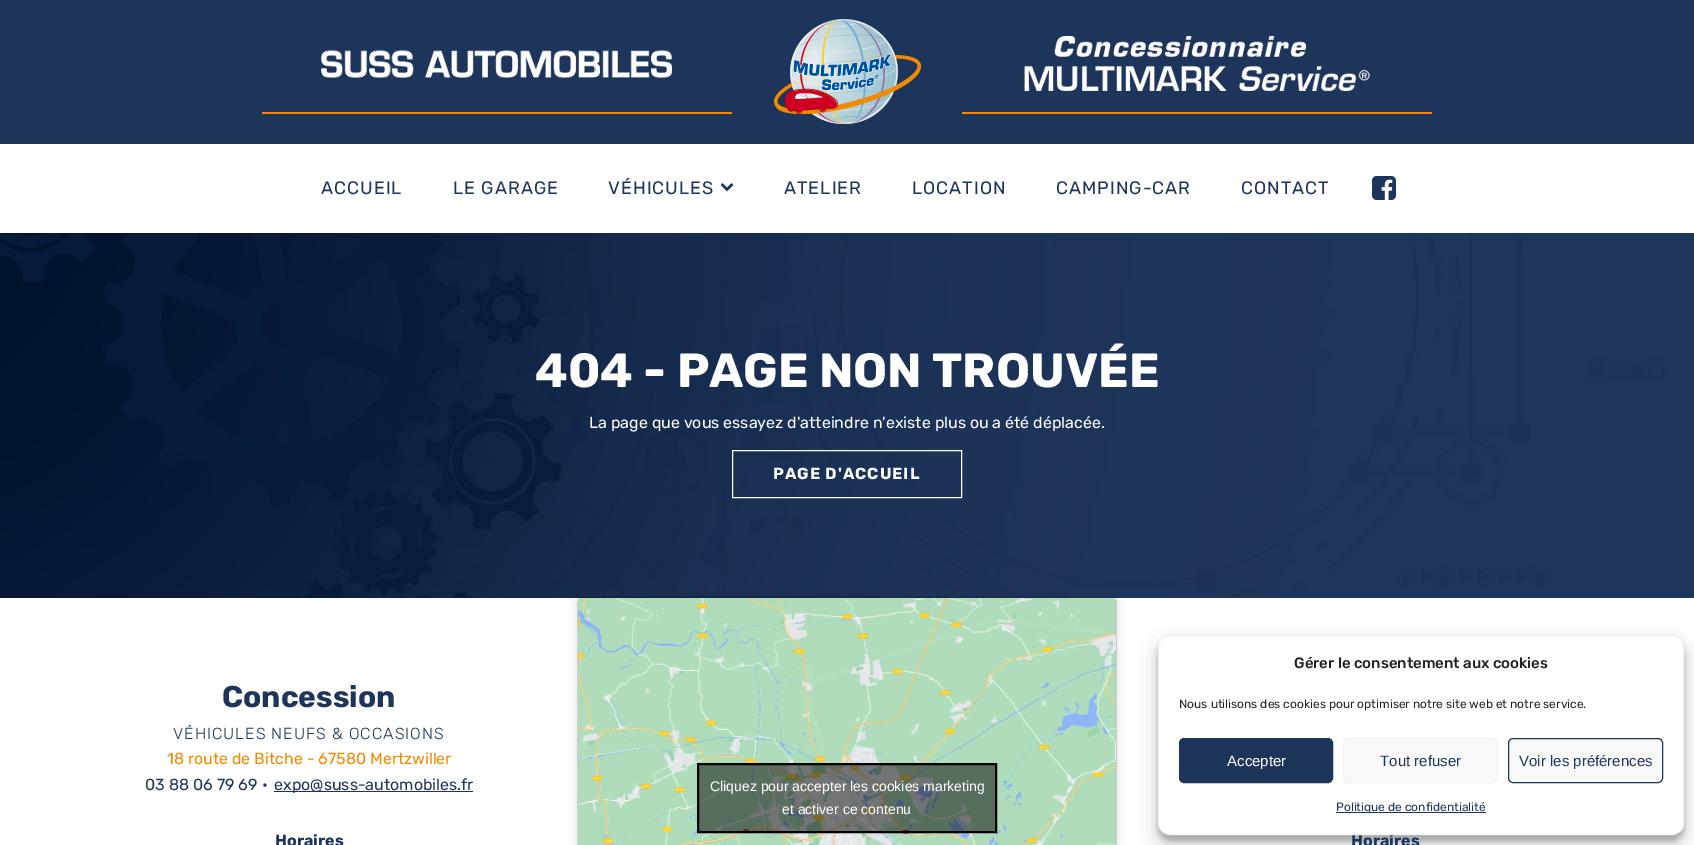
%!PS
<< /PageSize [1694 845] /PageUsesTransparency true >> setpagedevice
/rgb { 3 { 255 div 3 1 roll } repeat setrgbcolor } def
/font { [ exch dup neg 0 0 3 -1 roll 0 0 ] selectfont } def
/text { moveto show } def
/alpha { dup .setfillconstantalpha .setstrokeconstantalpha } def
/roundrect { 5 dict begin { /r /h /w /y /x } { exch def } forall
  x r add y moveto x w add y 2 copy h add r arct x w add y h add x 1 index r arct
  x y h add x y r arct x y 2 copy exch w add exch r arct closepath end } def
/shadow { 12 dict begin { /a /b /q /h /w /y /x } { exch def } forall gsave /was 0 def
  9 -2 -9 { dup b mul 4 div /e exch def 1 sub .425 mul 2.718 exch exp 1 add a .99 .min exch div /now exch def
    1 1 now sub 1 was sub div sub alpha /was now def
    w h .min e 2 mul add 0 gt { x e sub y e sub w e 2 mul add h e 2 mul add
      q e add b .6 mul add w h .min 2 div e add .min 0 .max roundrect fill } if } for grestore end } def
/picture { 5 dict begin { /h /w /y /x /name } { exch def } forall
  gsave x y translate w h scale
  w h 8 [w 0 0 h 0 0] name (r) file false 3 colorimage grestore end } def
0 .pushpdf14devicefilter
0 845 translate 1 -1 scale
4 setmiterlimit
255 255 255 rgb
0 0 1694 845 rectfill
30 53 91 rgb
0 0 1694 144 rectfill
(img_01.rgb) 262 19 1170 106 picture
(img_02.rgb) 720 183 14 9 picture
(img_03.rgb) 1372 176 24 24 picture
(img_04.rgb) 0 233 1694 365 picture
255 255 255 rgb
732.5 450.5 229 47 rectstroke
0 0 0 rgb
1158 641 526 200 12 3 0.23 shadow
1158 645 526 200 12 10 0.19 shadow
30 53 91 rgb
274 791 199 1 rectfill
0 0 0 rgb
578 599 538 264 3 5 0.15 shadow
578 598 538 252 3 0.5 0.5 shadow
(img_05.rgb) 578 598 538 247 picture
0.5 alpha
698 764 moveto 298 0 rlineto 0 68 rlineto -298 0 rlineto closepath fill
1 alpha
2 setlinewidth
698 764 moveto 298 0 rlineto 0 68 rlineto -298 0 rlineto closepath stroke
/Rubik-Regular 18 font
30 53 91 rgb
321 194 moveto 1 0 (ACCUEIL) ashow
453 194 moveto 1 0 (LE GARAGE) ashow
608 194 moveto 1 0 (VÉHICULES) ashow
784 194 moveto 1 0 (ATELIER) ashow
912 194 moveto 1 0 (LOCATION) ashow
1056 194 moveto 1 0 (CAMPING-CAR) ashow
1241 194 moveto 1 0 (CONTACT) ashow
/Rubik-Bold 48 font
255 255 255 rgb
(404 - PAGE NON TROUVÉE) 535 387 text
/Rubik-Regular 16 font
(La page que vous essayez d'atteindre n'existe plus ou a été déplacée.) 589 428 text
/Rubik-Bold 16 font
773 479 moveto 1 0 (PAGE D'ACCUEIL) ashow
/Rubik-Bold 30 font
30 53 91 rgb
(Concession) 222 707 text
/Rubik-Light 16 font
173 739 moveto 1 0 (VÉHICULES NEUFS & OCCASIONS) ashow
/Rubik-Regular 16 font
240 138 0 rgb
(18 route de Bitche - 67580 Mertzwiller) 167 764 text
30 53 91 rgb
(03 88 06 79 69) 145 790 text
(•) 262 790 text
(expo@suss-automobiles.fr) 274 790 text
/Rubik-Bold 16 font
(Horaires) 275 846 text
/LiberationSans-Regular 14 font
255 255 255 rgb
(Cliquez pour accepter les cookies marketing) 710 791 text
(et activer ce contenu) 782 814 text
/Rubik-Bold 16 font
30 53 91 rgb
(Horaires) 1351 846 text
255 255 255 rgb
1158.5 635.5 525 199 11.5 roundrect gsave fill grestore
242 242 242 rgb
1 setlinewidth
stroke
/Rubik-Regular 12 font
34 34 34 rgb
(Nous utilisons des cookies pour optimiser notre site web et notre service.) 1179 708 text
30 53 91 rgb
1336 812 150 1 rectfill
(Politique de confidentialité) 1336 811 text
249 249 249 rgb
1508.5 738.5 154 44 4.5 roundrect gsave fill grestore
30 53 91 rgb
stroke
/LiberationSans-Regular 15 font
(Voir les préférences) 1519 766 text
249 249 249 rgb
1343.5 738.5 154 44 4.5 roundrect gsave fill grestore
242 242 242 rgb
stroke
30 53 91 rgb
(Tout refuser) 1380 766 text
1179.5 738.5 153 44 4.5 roundrect gsave fill grestore
stroke
255 255 255 rgb
(Accepter) 1227 766 text
/Rubik-Medium 15 font
34 34 34 rgb
(Gérer le consentement aux cookies) 1294 668 text
.poppdf14devicefilter showpage
